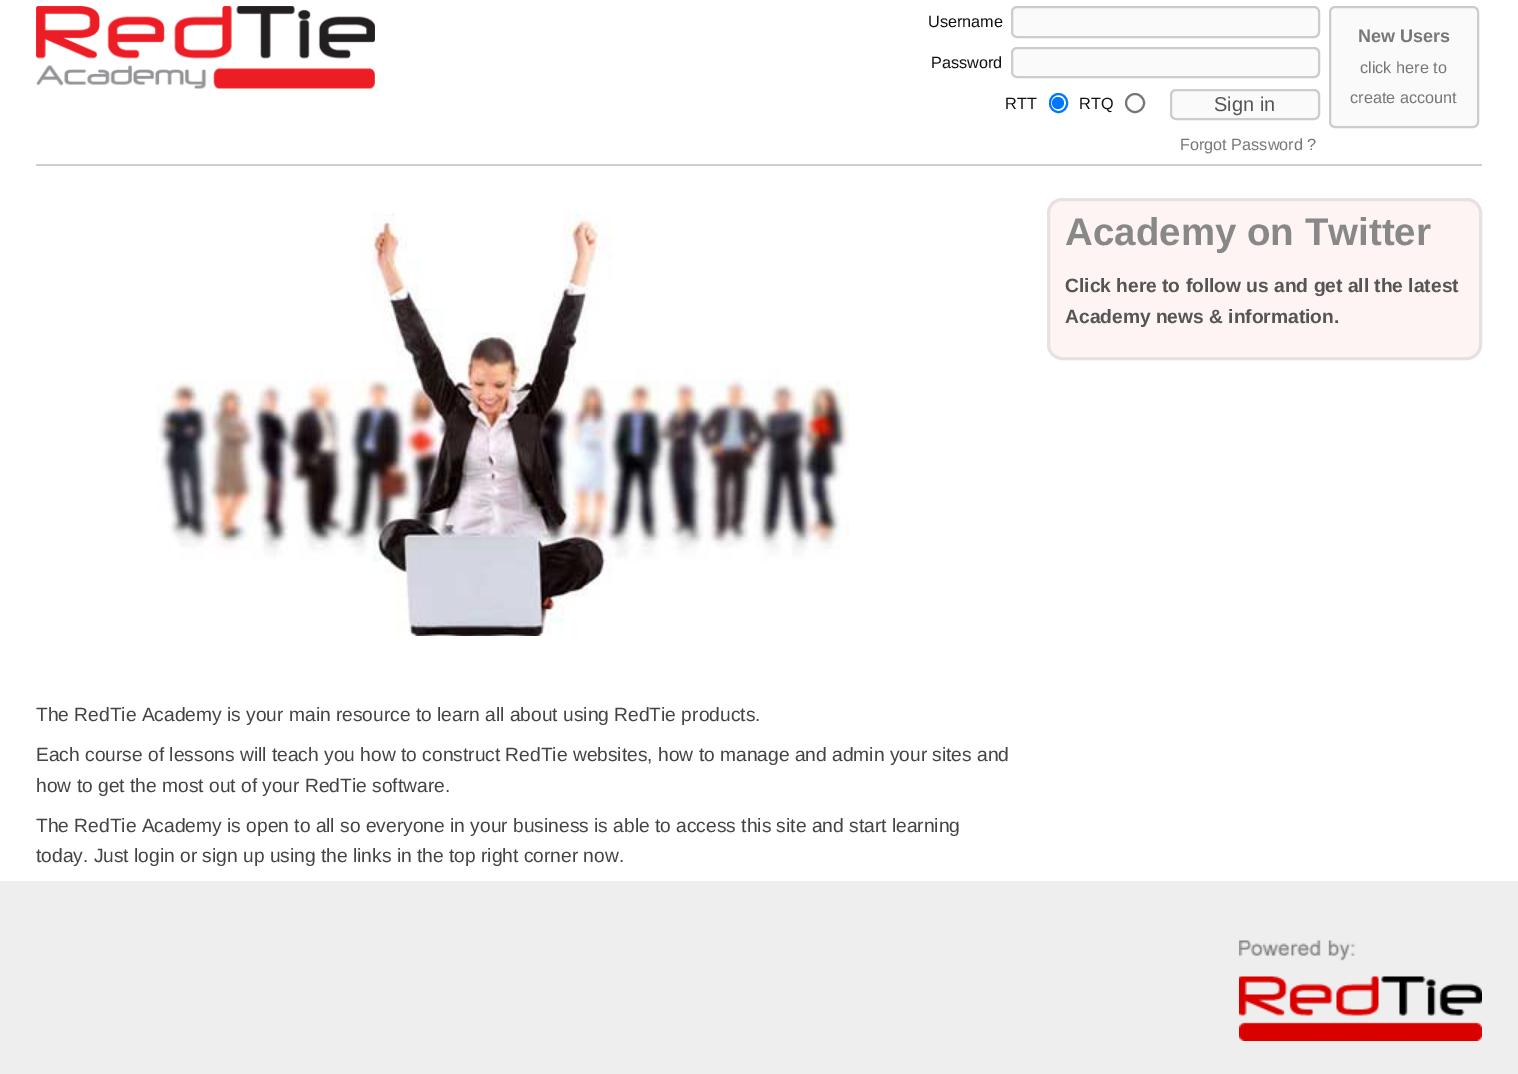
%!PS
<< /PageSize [1518 1074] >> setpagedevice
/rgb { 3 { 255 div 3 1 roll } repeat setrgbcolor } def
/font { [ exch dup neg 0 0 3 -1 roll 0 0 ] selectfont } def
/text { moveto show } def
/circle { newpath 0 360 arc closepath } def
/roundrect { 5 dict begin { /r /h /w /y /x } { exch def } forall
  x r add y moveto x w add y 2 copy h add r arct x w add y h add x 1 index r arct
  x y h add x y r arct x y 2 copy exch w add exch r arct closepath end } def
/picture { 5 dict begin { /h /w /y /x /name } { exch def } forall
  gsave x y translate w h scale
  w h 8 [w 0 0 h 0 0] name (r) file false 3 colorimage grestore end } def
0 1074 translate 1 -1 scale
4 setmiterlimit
255 255 255 rgb
0 0 1518 1074 rectfill
206 206 206 rgb
36 164 1446 2 rectfill
(img_01.rgb) 36 6 339 83 picture
250 250 250 rgb
1012 7 307 30 5 roundrect gsave fill grestore
204 204 204 rgb
2 setlinewidth
stroke
250 250 250 rgb
1012 48 307 29 5 roundrect gsave fill grestore
204 204 204 rgb
stroke
0 117 255 rgb
1050 94 17 18 8.5 roundrect stroke
1058 103 6 circle fill
118 118 118 rgb
1135 103 9 circle stroke
250 250 250 rgb
1171 90 148 29 5 roundrect gsave fill grestore
204 204 204 rgb
stroke
250 250 250 rgb
1330 7 148 120 5 roundrect gsave fill grestore
204 204 204 rgb
stroke
255 244 244 rgb
1048.5 199.5 432 159 13.5 roundrect gsave fill grestore
232 225 225 rgb
3 setlinewidth
stroke
(img_02.rgb) 156 213 693 423 picture
238 238 238 rgb
0 881 1518 193 rectfill
(img_03.rgb) 1239 940 243 101 picture
/LiberationSans-Regular 16.25 font
17 17 17 rgb
(Username) 928 27 text
(Password) 931 68 text
(RTT) 1005 109 text
(RTQ) 1079 109 text
/LiberationSans-Regular 20 font
85 85 85 rgb
(Sign in) 1214 111 text
/LiberationSans-Regular 16.25 font
119 119 119 rgb
(Forgot Password ?) 1180 150 text
/LiberationSans-Bold 18 font
(New Users) 1358 42 text
/LiberationSans-Regular 16.25 font
(click here to) 1360 73 text
(create account) 1350 103 text
/LiberationSans-Bold 38.5 font
136 136 136 rgb
(Academy on Twitter) 1065 245 text
/LiberationSans-Bold 19.2 font
85 85 85 rgb
(Click here to follow us and get all the latest) 1065 292 text
(Academy news & information.) 1065 323 text
/LiberationSans-Regular 19.2 font
68 68 68 rgb
(The RedTie Academy is your main resource to learn all about using RedTie products.) 36 721 text
(Each course of lessons will teach you how to construct RedTie websites, how to manage and admin your sites and) 36 761 text
(how to get the most out of your RedTie software.) 36 792 text
(The RedTie Academy is open to all so everyone in your business is able to access this site and start learning) 36 832 text
(today. Just login or sign up using the links in the top right corner now.) 36 862 text
showpage
